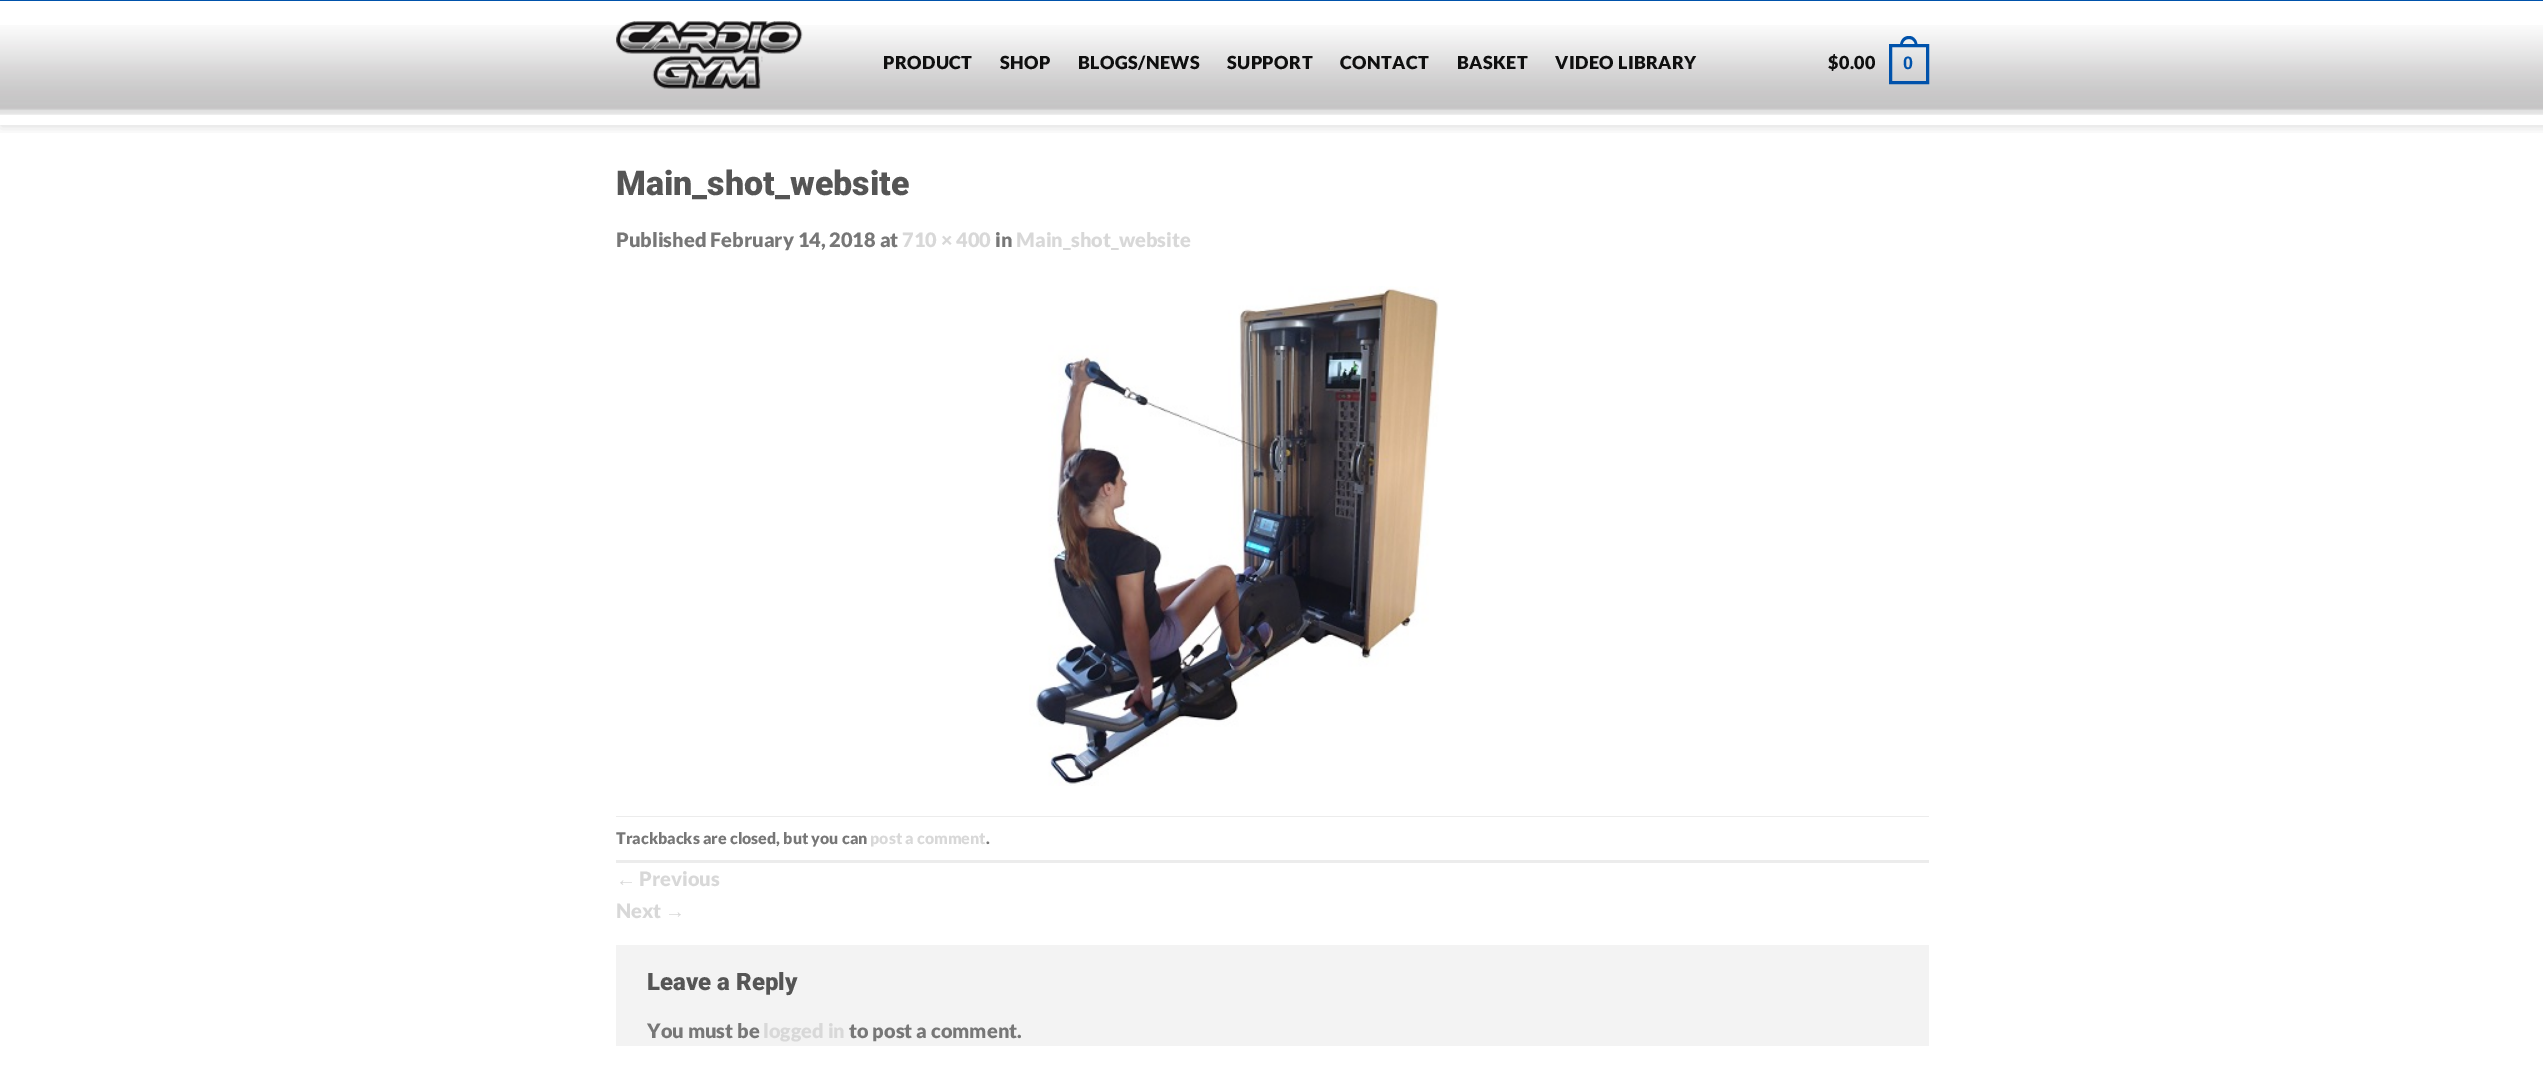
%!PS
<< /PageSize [2543 1068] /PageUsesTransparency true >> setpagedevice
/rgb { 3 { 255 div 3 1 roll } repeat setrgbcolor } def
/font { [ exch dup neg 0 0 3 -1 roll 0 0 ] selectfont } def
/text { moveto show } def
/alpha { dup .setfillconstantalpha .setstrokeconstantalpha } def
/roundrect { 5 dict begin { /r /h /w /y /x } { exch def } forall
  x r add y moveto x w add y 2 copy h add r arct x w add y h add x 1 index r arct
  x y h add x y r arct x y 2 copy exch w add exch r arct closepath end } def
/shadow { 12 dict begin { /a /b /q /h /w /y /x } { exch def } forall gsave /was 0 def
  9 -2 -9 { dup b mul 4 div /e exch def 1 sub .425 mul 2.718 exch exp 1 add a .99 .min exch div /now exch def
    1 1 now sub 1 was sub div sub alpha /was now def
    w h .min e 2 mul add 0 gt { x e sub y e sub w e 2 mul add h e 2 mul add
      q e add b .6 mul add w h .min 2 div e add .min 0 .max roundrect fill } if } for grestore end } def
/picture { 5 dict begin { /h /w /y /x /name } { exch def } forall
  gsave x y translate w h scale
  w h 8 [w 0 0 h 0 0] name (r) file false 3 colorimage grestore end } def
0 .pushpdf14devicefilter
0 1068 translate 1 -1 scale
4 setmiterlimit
255 255 255 rgb
0 0 2543 1068 rectfill
gsave
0 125 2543 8 rectclip
0 0 0 rgb
1 -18 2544 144 0 6 0.15 shadow
grestore
0 82 171 rgb
0 0 2543 1 rectfill
(img_01.rgb) 0 25 2543 90 picture
(img_02.rgb) 616 21 187 68 picture
3 setlinewidth
1890.5 45.5 37 37 rectstroke
1909 36 moveto 5.5 0 8.5 5 8.5 10 rcurveto -17.5 0 rlineto 0 -5 3 -10 9 -10 rcurveto closepath 1909 39 moveto 4 0 6 3.5 6 7 rcurveto -12.5 0 rlineto 0 -3.5 2 -7 6.5 -7 rcurveto closepath eofill
(img_03.rgb) 1029 286 410 500 picture
236 236 236 rgb
616 816 1313 1 rectfill
616 860 1313 3 rectfill
243 243 243 rgb
616 945 1313 101 rectfill
/Lato-Black 18 font
15 15 15 rgb
883 69 moveto 0.4 0 (PRODUCT) ashow
1000 69 moveto 0.4 0 (SHOP) ashow
1078 69 moveto 0.4 0 (BLOGS/NEWS) ashow
1227 69 moveto 0.4 0 (SUPPORT) ashow
1340 69 moveto 0.4 0 (CONTACT) ashow
1457 69 moveto 0.4 0 (BASKET) ashow
1555 69 moveto 0.4 0 (VIDEO LIBRARY) ashow
1828 69 moveto 0.4 0 ($0.00) ashow
/LiberationSans-Bold 18 font
0 82 171 rgb
1903 69 moveto 0.4 0 (0) ashow
/Roboto-Black 34 font
85 85 85 rgb
(Main_shot_website) 616 195 text
/Lato-Black 20 font
119 119 119 rgb
(Published February 14, 2018 at) 616 247 text
216 216 216 rgb
(710 × 400) 902 247 text
119 119 119 rgb
(in) 995 247 text
216 216 216 rgb
(Main_shot_website) 1016 247 text
/Lato-Black 16 font
119 119 119 rgb
(Trackbacks are closed, but you can) 616 844 text
216 216 216 rgb
(post a comment) 870 844 text
119 119 119 rgb
(.) 986 844 text
/LiberationSans-Regular 20 font
216 216 216 rgb
(←) 616 886 text
/Lato-Black 20 font
(Previous) 639 886 text
(Next) 616 918 text
/LiberationSans-Regular 20 font
(→) 665 918 text
/Roboto-Black 24 font
85 85 85 rgb
(Leave a Reply) 647 990 text
/Lato-Black 20 font
119 119 119 rgb
(You must be) 647 1038 text
216 216 216 rgb
(logged in) 763 1038 text
119 119 119 rgb
(to post a comment.) 849 1038 text
.poppdf14devicefilter showpage
